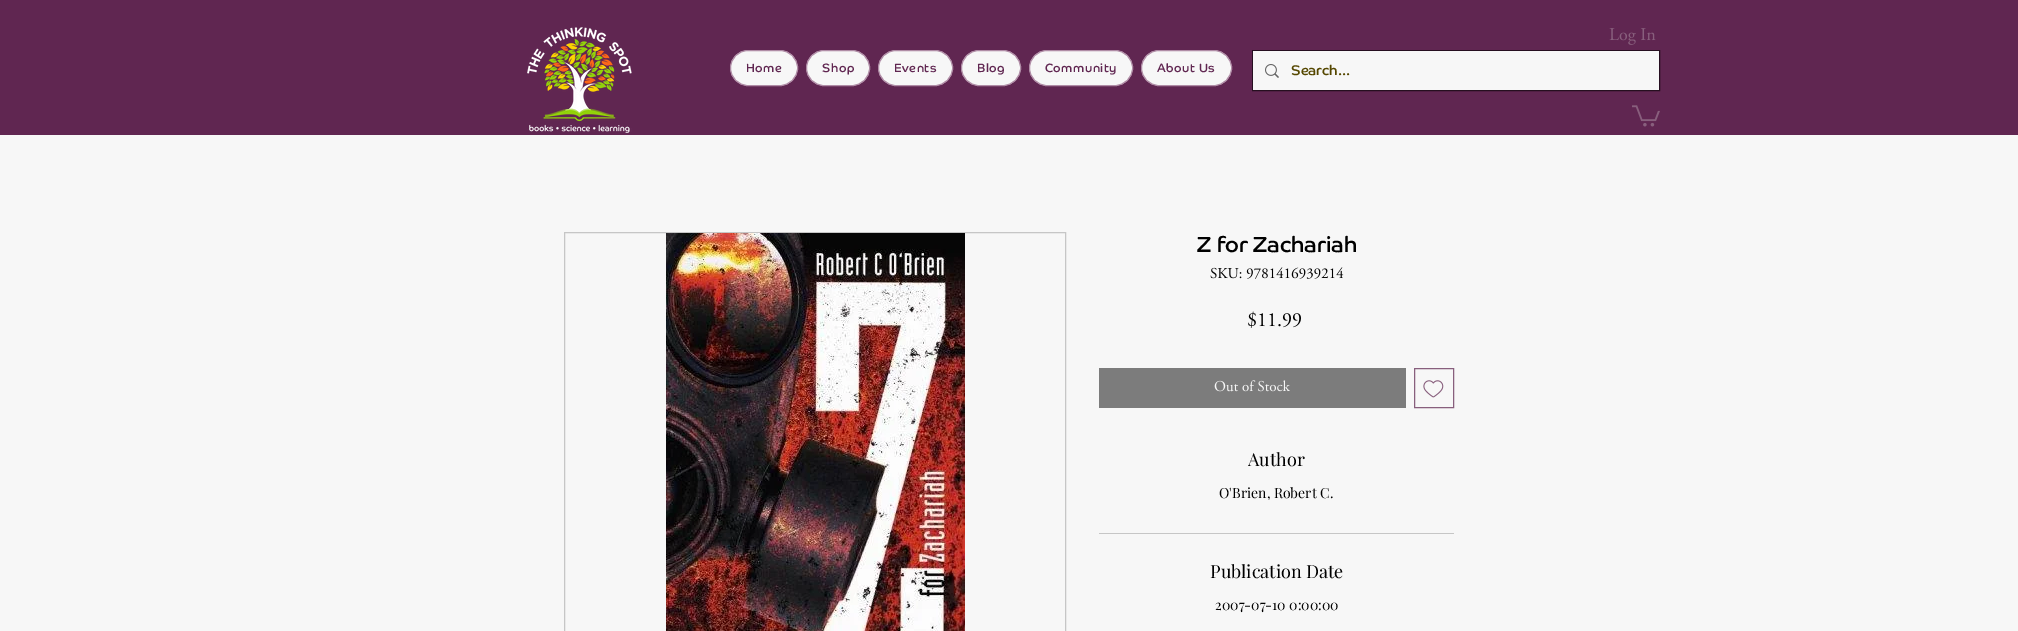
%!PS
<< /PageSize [2018 631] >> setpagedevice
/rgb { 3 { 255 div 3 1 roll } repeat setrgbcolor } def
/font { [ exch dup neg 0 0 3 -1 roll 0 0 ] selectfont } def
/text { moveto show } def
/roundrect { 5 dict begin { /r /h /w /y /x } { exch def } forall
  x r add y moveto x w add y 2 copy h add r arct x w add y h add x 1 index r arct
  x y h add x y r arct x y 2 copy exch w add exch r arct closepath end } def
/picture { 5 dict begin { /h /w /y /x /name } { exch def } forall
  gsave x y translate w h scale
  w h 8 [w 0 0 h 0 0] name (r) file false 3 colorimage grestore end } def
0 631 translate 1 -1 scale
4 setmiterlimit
247 247 247 rgb
0 0 2018 631 rectfill
96 38 81 rgb
0 0 2018 135 rectfill
(img_01.rgb) 527 27 105 106 picture
(img_02.rgb) 1609 28 47 17 picture
247 247 247 rgb
730.5 50.5 67 35 17.5 roundrect gsave fill grestore
176 140 166 rgb
stroke
247 247 247 rgb
806.5 50.5 63 35 17.5 roundrect gsave fill grestore
176 140 166 rgb
stroke
247 247 247 rgb
878.5 50.5 74 35 17.5 roundrect gsave fill grestore
176 140 166 rgb
stroke
247 247 247 rgb
961.5 50.5 59 35 17.5 roundrect gsave fill grestore
176 140 166 rgb
stroke
247 247 247 rgb
1029.5 50.5 103 35 17.5 roundrect gsave fill grestore
176 140 166 rgb
stroke
247 247 247 rgb
1141.5 50.5 90 35 17.5 roundrect gsave fill grestore
176 140 166 rgb
stroke
38 15 32 rgb
1252.5 50.5 407 40 rectstroke
247 247 247 rgb
1253 51 406 39 rectfill
(img_03.rgb) 1265 64 14 14 picture
(img_04.rgb) 1632 105 28 22 picture
198 198 198 rgb
564.5 232.5 501 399 rectstroke
(img_05.rgb) 666 233 299 398 picture
(img_06.rgb) 1210 267 134 12 picture
(img_07.rgb) 1248 311 53 17 picture
124 124 124 rgb
1099 368 307 40 rectfill
(img_08.rgb) 1214 380 76 12 picture
136 95 125 rgb
1414.5 368.5 39 39 rectstroke
(img_09.rgb) 1423 380 21 18 picture
198 198 198 rgb
1099 533 355 1 rectfill
/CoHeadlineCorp-Regular 12 font
96 38 81 rgb
746 72 moveto 0.5 0 (Home) ashow
822 72 moveto 0.5 0 (Shop) ashow
894 72 moveto 0.5 0 (Events) ashow
977 72 moveto 0.5 0 (Blog) ashow
1045 72 moveto 0.5 0 (Community) ashow
1157 72 moveto 0.5 0 (About Us) ashow
/CoHeadlineCorp-Regular 14 font
85 71 0 rgb
(Search...) 1291 75 text
/CoHeadlineCorp-Regular 22 font
0 0 0 rgb
(Z for Zachariah) 1197 252 text
/PlayfairDisplay-Regular 18 font
(Author) 1248 466 text
/PlayfairDisplay-Regular 14 font
(O'Brien, Robert C.) 1219 498 text
/PlayfairDisplay-Regular 18 font
(Publication Date) 1210 578 text
/PlayfairDisplay-Regular 14 font
(2007-07-10 0:00:00) 1215 610 text
showpage
